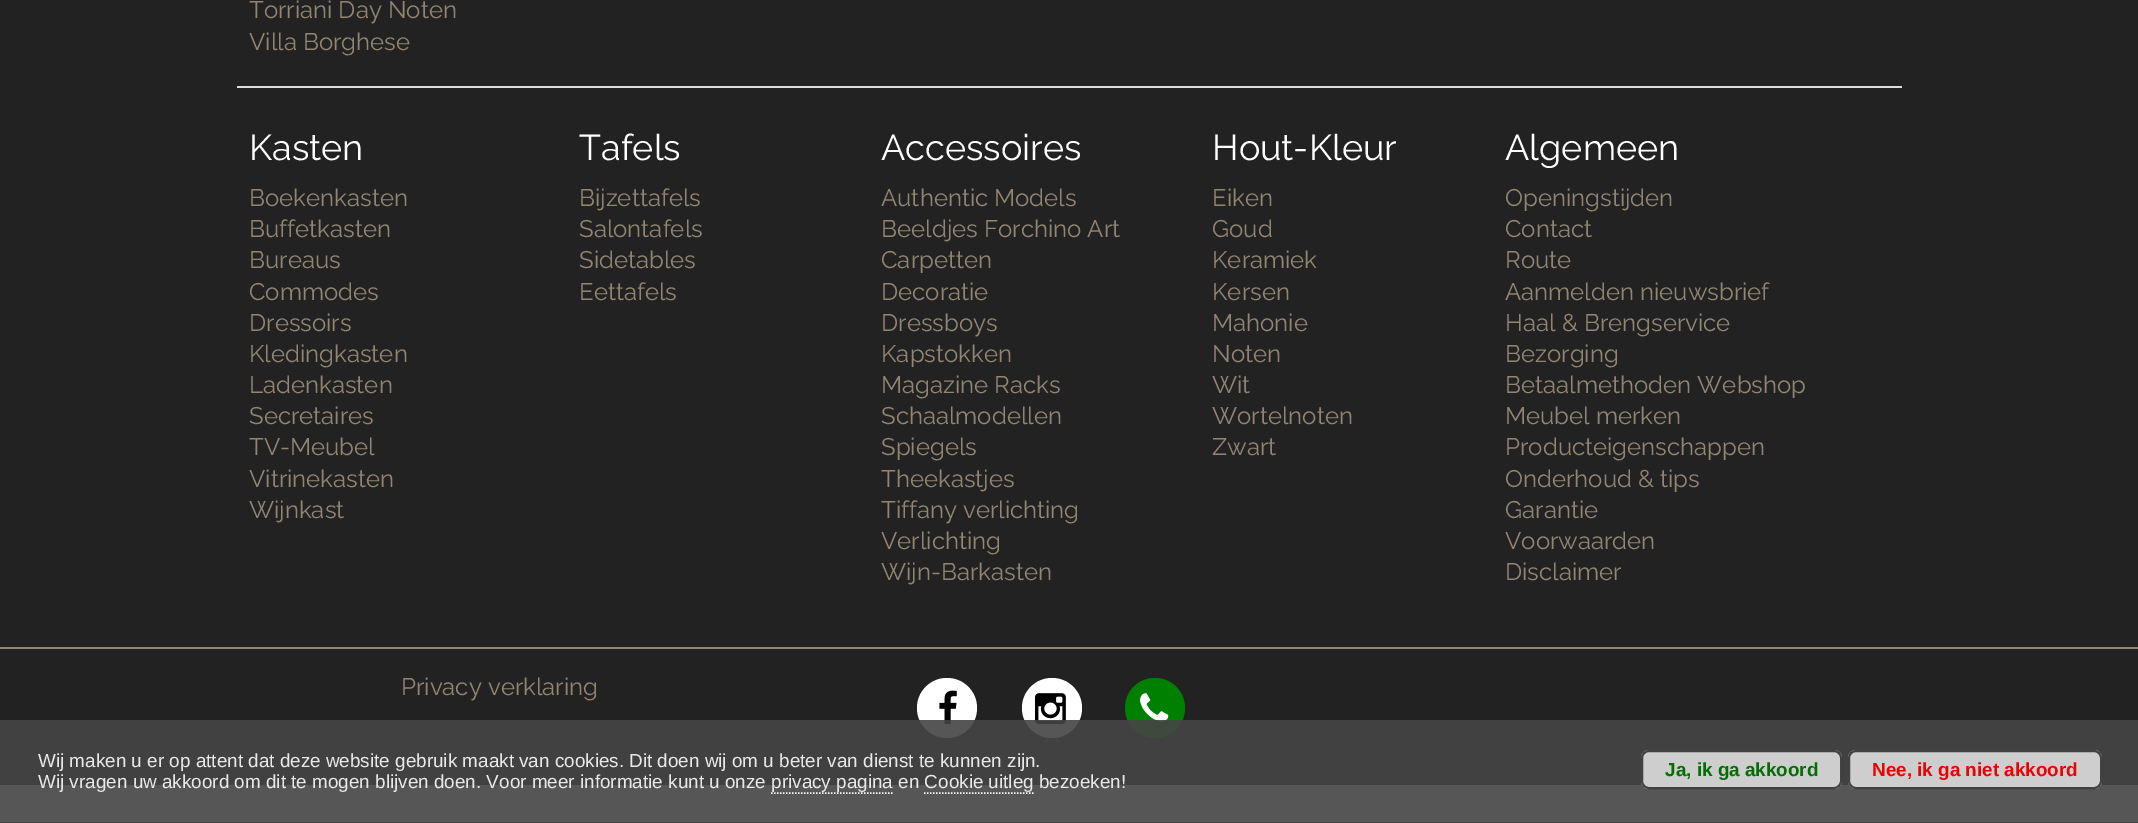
%!PS
<< /PageSize [2138 823] /PageUsesTransparency true >> setpagedevice
/rgb { 3 { 255 div 3 1 roll } repeat setrgbcolor } def
/font { [ exch dup neg 0 0 3 -1 roll 0 0 ] selectfont } def
/text { moveto show } def
/alpha { dup .setfillconstantalpha .setstrokeconstantalpha } def
/circle { newpath 0 360 arc closepath } def
/roundrect { 5 dict begin { /r /h /w /y /x } { exch def } forall
  x r add y moveto x w add y 2 copy h add r arct x w add y h add x 1 index r arct
  x y h add x y r arct x y 2 copy exch w add exch r arct closepath end } def
/picture { 5 dict begin { /h /w /y /x /name } { exch def } forall
  gsave x y translate w h scale
  w h 8 [w 0 0 h 0 0] name (r) file false 3 colorimage grestore end } def
0 .pushpdf14devicefilter
0 823 translate 1 -1 scale
4 setmiterlimit
255 255 255 rgb
0 0 2138 823 rectfill
34 34 34 rgb
0 0 2138 785 rectfill
221 221 221 rgb
237 86 1665 2 rectfill
146 133 114 rgb
0 647 2138 2 rectfill
255 255 255 rgb
947 708 30 circle fill
(img_01.rgb) 939 690 18 35 picture
1052 708 30 circle fill
(img_02.rgb) 1035 693 31 32 picture
0 128 0 rgb
1155 708 30 circle fill
(img_03.rgb) 1140 693 29 29 picture
0.9 alpha
68 68 68 rgb
0 720 2138 102 rectfill
1 alpha
71 71 71 rgb
0 822 2138 1 rectfill
255 255 255 rgb
1.5 setlinewidth
[1.5 1.5] 0 setdash
771 793 moveto 121.5 0 rlineto stroke
924 793 moveto 109.5 0 rlineto stroke
0.9 alpha
221 221 221 rgb
1641 750 201 39 8 roundrect fill
51 51 51 rgb
2 setlinewidth
[] 0 setdash
1642 751 199 37 7 roundrect stroke
221 221 221 rgb
1848 750 254 39 8 roundrect fill
51 51 51 rgb
1849 751 252 37 7 roundrect stroke
/Raleway-Thin 24 font
1 alpha
146 133 114 rgb
(Torriani Day Noten) 249 18 text
(Villa Borghese) 249 50 text
/Raleway-Thin 36 font
255 255 255 rgb
(Kasten) 249 160 text
/Raleway-Thin 24 font
146 133 114 rgb
(Boekenkasten) 249 206 text
(Buffetkasten) 249 237 text
(Bureaus) 249 268 text
(Commodes) 249 300 text
(Dressoirs) 249 331 text
(Kledingkasten) 249 362 text
(Ladenkasten) 249 393 text
(Secretaires) 249 424 text
(TV-Meubel) 249 455 text
(Vitrinekasten) 249 487 text
(Wijnkast) 249 518 text
/Raleway-Thin 36 font
255 255 255 rgb
(Tafels) 579 160 text
/Raleway-Thin 24 font
146 133 114 rgb
(Bijzettafels) 579 206 text
(Salontafels) 579 237 text
(Sidetables) 579 268 text
(Eettafels) 579 300 text
/Raleway-Thin 36 font
255 255 255 rgb
(Accessoires) 881 160 text
/Raleway-Thin 24 font
146 133 114 rgb
(Authentic Models) 881 206 text
(Beeldjes Forchino Art) 881 237 text
(Carpetten) 881 268 text
(Decoratie) 881 300 text
(Dressboys) 881 331 text
(Kapstokken) 881 362 text
(Magazine Racks) 881 393 text
(Schaalmodellen) 881 424 text
(Spiegels) 881 455 text
(Theekastjes) 881 487 text
(Tiffany verlichting) 881 518 text
(Verlichting) 881 549 text
(Wijn-Barkasten) 881 580 text
/Raleway-Thin 36 font
255 255 255 rgb
(Hout-Kleur) 1212 160 text
/Raleway-Thin 24 font
146 133 114 rgb
(Eiken) 1212 206 text
(Goud) 1212 237 text
(Keramiek) 1212 268 text
(Kersen) 1212 300 text
(Mahonie) 1212 331 text
(Noten) 1212 362 text
(Wit) 1212 393 text
(Wortelnoten) 1212 424 text
(Zwart) 1212 455 text
/Raleway-Thin 36 font
255 255 255 rgb
(Algemeen) 1505 160 text
/Raleway-Thin 24 font
146 133 114 rgb
(Openingstijden) 1505 206 text
(Contact) 1505 237 text
(Route) 1505 268 text
(Aanmelden nieuwsbrief) 1505 300 text
(Haal & Brengservice) 1505 331 text
(Bezorging) 1505 362 text
(Betaalmethoden Webshop) 1505 393 text
(Meubel merken) 1505 424 text
(Producteigenschappen) 1505 455 text
(Onderhoud & tips) 1505 487 text
(Garantie) 1505 518 text
(Voorwaarden) 1505 549 text
(Disclaimer) 1505 580 text
(Privacy verklaring) 401 695 text
/LiberationSans-Regular 18.9 font
233 233 233 rgb
(Wij maken u er op attent dat deze website gebruik maakt van cookies.) 38 767 text
(Dit doen wij om u beter van dienst te kunnen zijn.) 629 767 text
(Wij vragen uw akkoord om dit te mogen blijven doen. Voor meer informatie kunt u onze privacy pagina en Cookie uitleg bezoeken!) 38 788 text
/LiberationSans-Bold 18.9 font
3 111 3 rgb
(Ja, ik ga akkoord) 1665 776 text
233 3 3 rgb
(Nee, ik ga niet akkoord) 1872 776 text
.poppdf14devicefilter showpage
